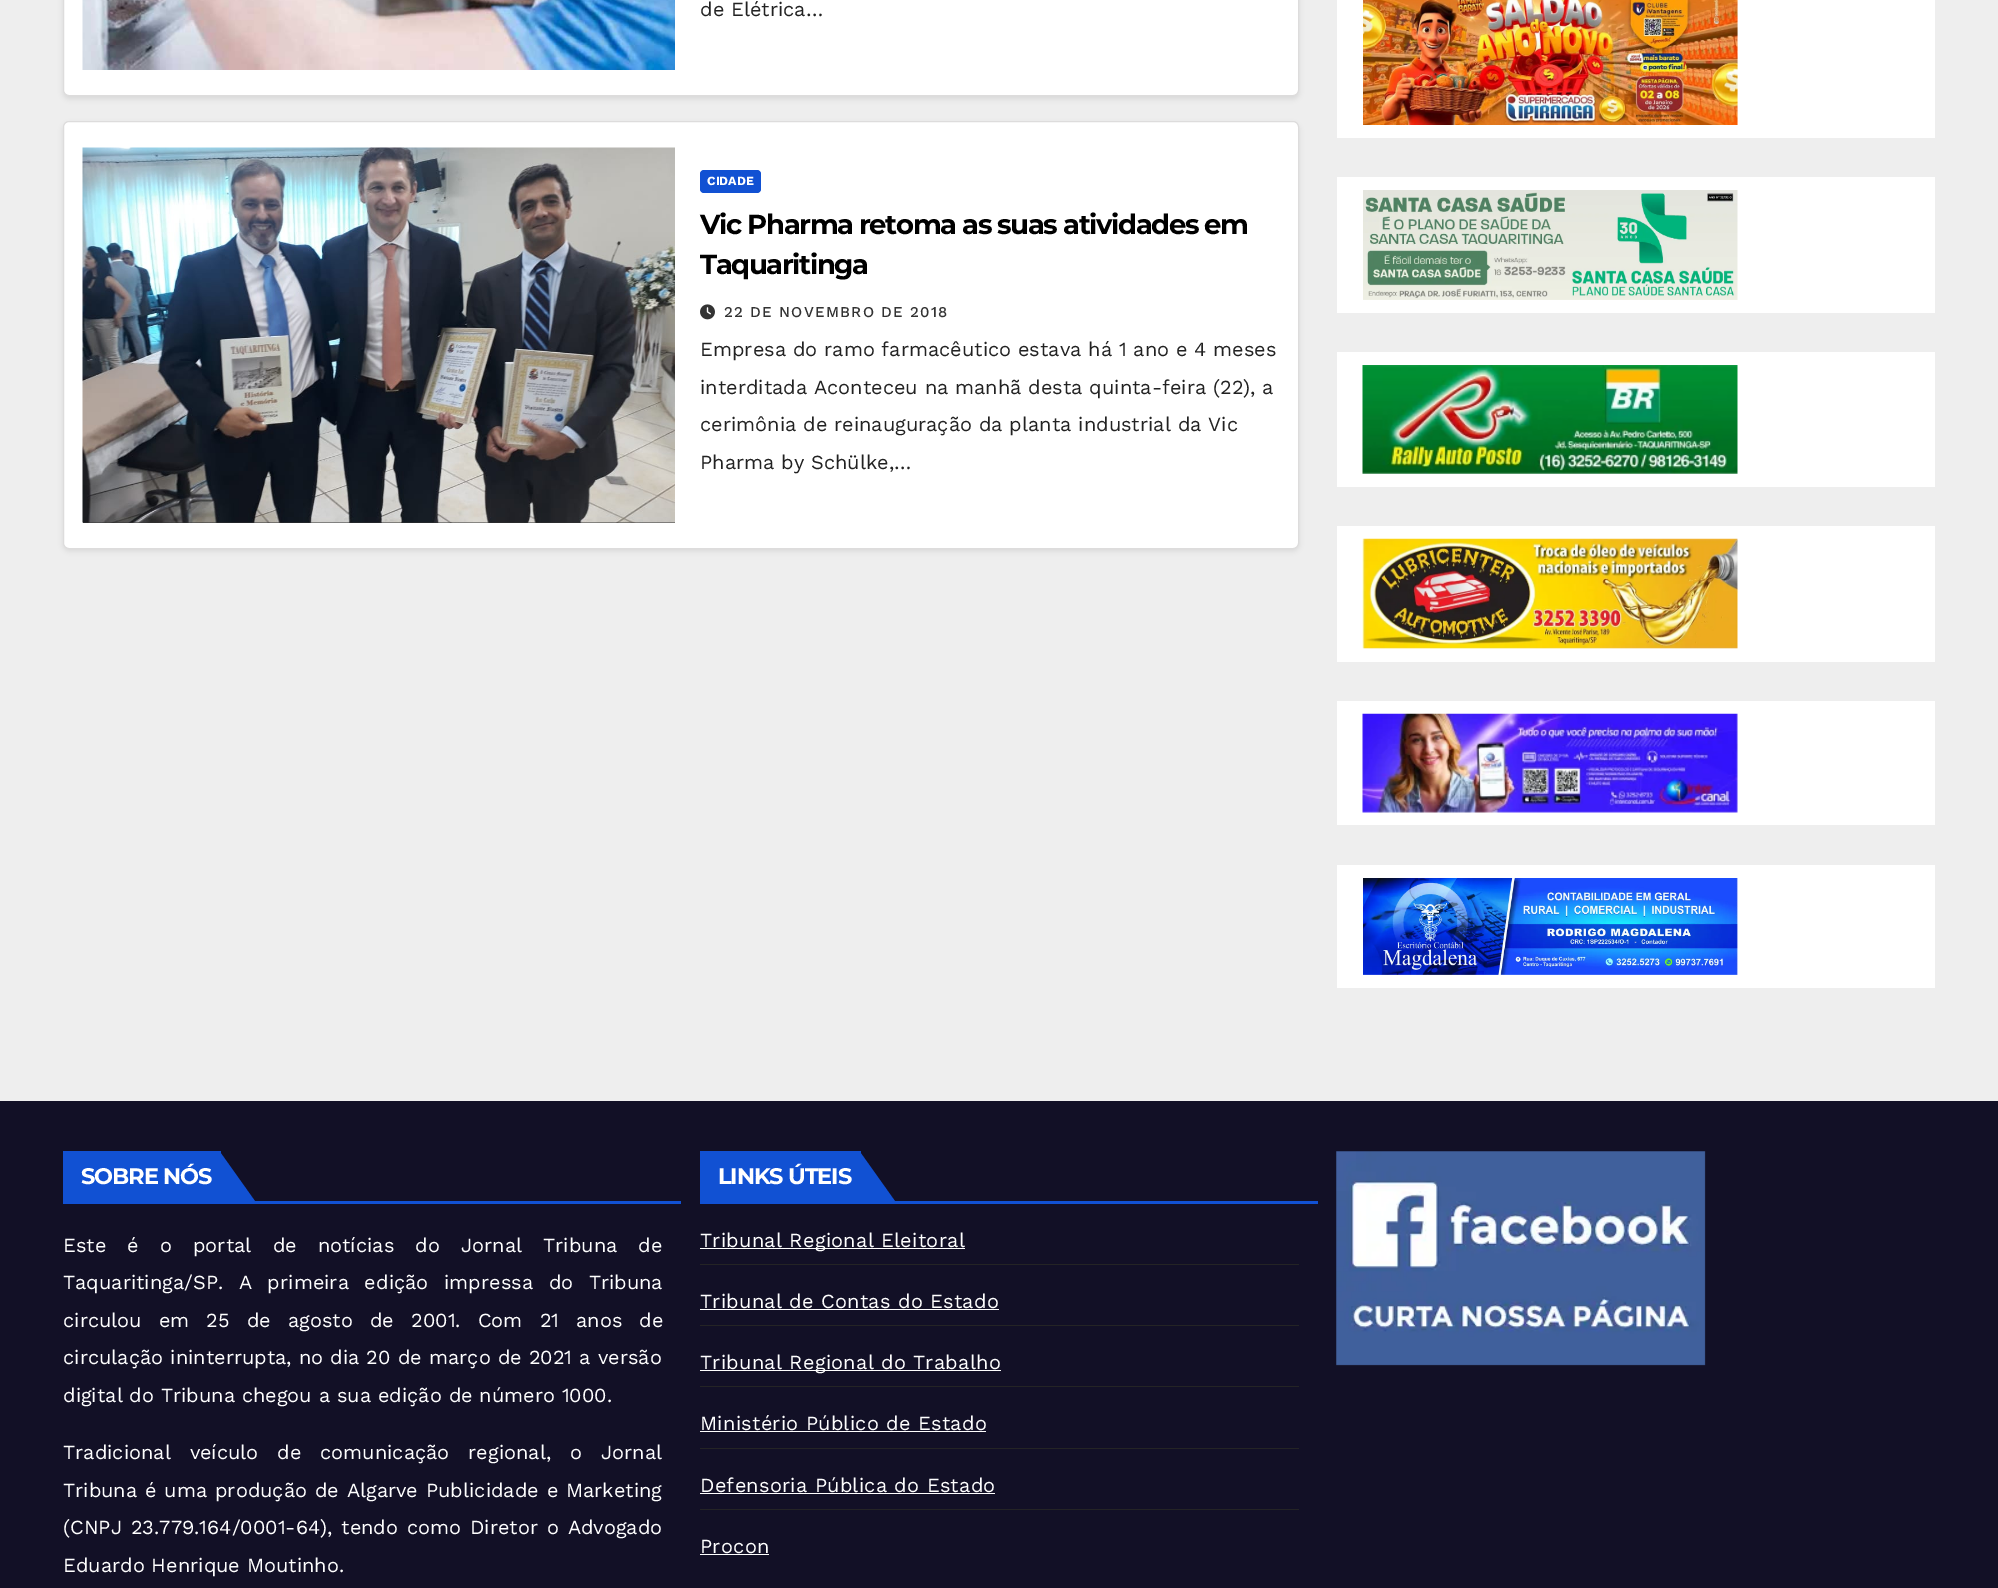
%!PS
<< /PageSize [1998 1588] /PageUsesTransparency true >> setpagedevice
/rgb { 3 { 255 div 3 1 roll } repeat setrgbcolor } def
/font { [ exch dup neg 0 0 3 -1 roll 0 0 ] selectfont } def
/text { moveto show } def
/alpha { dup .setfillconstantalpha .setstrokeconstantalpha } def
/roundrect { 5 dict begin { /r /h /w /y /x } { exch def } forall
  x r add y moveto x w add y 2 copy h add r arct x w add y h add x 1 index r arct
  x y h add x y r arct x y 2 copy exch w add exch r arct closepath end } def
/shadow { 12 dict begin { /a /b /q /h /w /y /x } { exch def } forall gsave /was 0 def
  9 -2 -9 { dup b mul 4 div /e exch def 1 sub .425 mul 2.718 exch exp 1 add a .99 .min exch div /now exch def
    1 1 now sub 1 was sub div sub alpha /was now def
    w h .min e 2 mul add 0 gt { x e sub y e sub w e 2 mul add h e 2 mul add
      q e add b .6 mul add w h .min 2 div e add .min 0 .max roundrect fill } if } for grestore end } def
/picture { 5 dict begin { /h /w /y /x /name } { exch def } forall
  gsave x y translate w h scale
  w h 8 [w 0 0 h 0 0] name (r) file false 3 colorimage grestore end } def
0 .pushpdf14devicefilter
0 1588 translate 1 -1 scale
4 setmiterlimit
238 238 238 rgb
0 0 1998 1588 rectfill
0 0 0 rgb
63 -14 1236 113 6 2.5 0.08 shadow
255 255 255 rgb
63.5 -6.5 1235 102 5.5 roundrect gsave fill grestore
221 220 220 rgb
stroke
(img_01.rgb) 82 0 593 70 picture
0 0 0 rgb
63 124 1236 427 6 2.5 0.08 shadow
255 255 255 rgb
63.5 121.5 1235 427 5.5 roundrect gsave fill grestore
221 220 220 rgb
stroke
51 51 51 rgb
83 522 592 1 rectfill
(img_02.rgb) 82 147 593 376 picture
17 81 211 rgb
700 170 61 23 4 roundrect fill
(img_03.rgb) 700 304 15 16 picture
255 255 255 rgb
1337 0 598 138 rectfill
(img_04.rgb) 1363 0 375 125 picture
1337 177 598 136 rectfill
(img_05.rgb) 1363 190 375 110 picture
1337 352 598 135 rectfill
(img_06.rgb) 1362 365 376 109 picture
1337 526 598 136 rectfill
(img_07.rgb) 1362 538 376 111 picture
1337 701 598 124 rectfill
(img_08.rgb) 1362 713 376 100 picture
1337 865 598 123 rectfill
(img_09.rgb) 1363 878 375 97 picture
18 16 38 rgb
0 1101 1998 487 rectfill
17 81 211 rgb
63 1151 158 50 rectfill
257 1204 moveto -37 0 rlineto 0 -52 rlineto closepath fill
63 1201 618 3 rectfill
700 1151 161 50 rectfill
897 1204 moveto -37 0 rlineto 0 -52 rlineto closepath fill
700 1201 618 3 rectfill
36 36 37 rgb
700 1264 599 1 rectfill
255 255 255 rgb
700 1248 265 1 rectfill
36 36 37 rgb
700 1325 599 1 rectfill
255 255 255 rgb
700 1309 299 1 rectfill
36 36 37 rgb
700 1386 599 1 rectfill
255 255 255 rgb
700 1370 301 1 rectfill
36 36 37 rgb
700 1448 599 1 rectfill
255 255 255 rgb
700 1431 286 1 rectfill
36 36 37 rgb
700 1509 599 1 rectfill
255 255 255 rgb
700 1493 295 1 rectfill
700 1554 69 1 rectfill
(img_10.rgb) 1336 1151 370 215 picture
/WorkSans-Regular 20 font
34 34 34 rgb
(de Elétrica…) 700 16 text
/WorkSans-Bold 12.5 font
255 255 255 rgb
(CIDADE) 707 185 text
/Montserrat-Bold 27.5 font
0 0 0 rgb
700 234 moveto -1.4 0 (Vic Pharma retoma as suas atividades em) ashow
gsave
700 205 579 80 rectclip
700 274 moveto -1.4 0 (Taquaritinga) ashow
grestore
/WorkSans-Medium 15 font
51 51 51 rgb
724 317 moveto 1.25 0 (22 DE NOVEMBRO DE 2018) ashow
/WorkSans-Regular 20 font
34 34 34 rgb
(Empresa do ramo farmacêutico estava há 1 ano e 4 meses) 700 356 text
(interditada Aconteceu na manhã desta quinta-feira \(22\), a) 700 394 text
(cerimônia de reinauguração da planta industrial da Vic) 700 431 text
(Pharma by Schülke,…) 700 469 text
/Montserrat-Bold 22.5 font
255 255 255 rgb
81 1184 moveto -1.1 0 (SOBRE NÓS) ashow
/WorkSans-Regular 20 font
63 1252 moveto 14.25 0 32 (Este é o portal de notícias do Jornal Tribuna de) widthshow
63 1289 moveto 8.75 0 32 (Taquaritinga/SP. A primeira edição impressa do Tribuna) widthshow
63 1327 moveto 10.25 0 32 (circulou em 25 de agosto de 2001. Com 21 anos de) widthshow
63 1364 moveto 0.25 0 32 (circulação ininterrupta, no dia 20 de março de 2021 a versão) widthshow
(digital do Tribuna chegou a sua edição de número 1000.) 63 1402 text
63 1459 moveto 12 0 32 (Tradicional veículo de comunicação regional, o Jornal) widthshow
63 1497 moveto 1 0 32 (Tribuna é uma produção de Algarve Publicidade e Marketing) widthshow
63 1534 moveto 2 0 32 (\(CNPJ 23.779.164/0001-64\), tendo como Diretor o Advogado) widthshow
(Eduardo Henrique Moutinho.) 63 1572 text
/Montserrat-Bold 22.5 font
718 1184 moveto -1.1 0 (LINKS ÚTEIS) ashow
/WorkSans-Regular 20 font
700 1247 moveto 0.25 0 (Tribunal Regional Eleitoral) ashow
700 1308 moveto 0.25 0 (Tribunal de Contas do Estado) ashow
700 1369 moveto 0.25 0 (Tribunal Regional do Trabalho) ashow
700 1430 moveto 0.25 0 (Ministério Público de Estado) ashow
700 1492 moveto 0.25 0 (Defensoria Pública do Estado) ashow
700 1553 moveto 0.25 0 (Procon) ashow
.poppdf14devicefilter showpage
